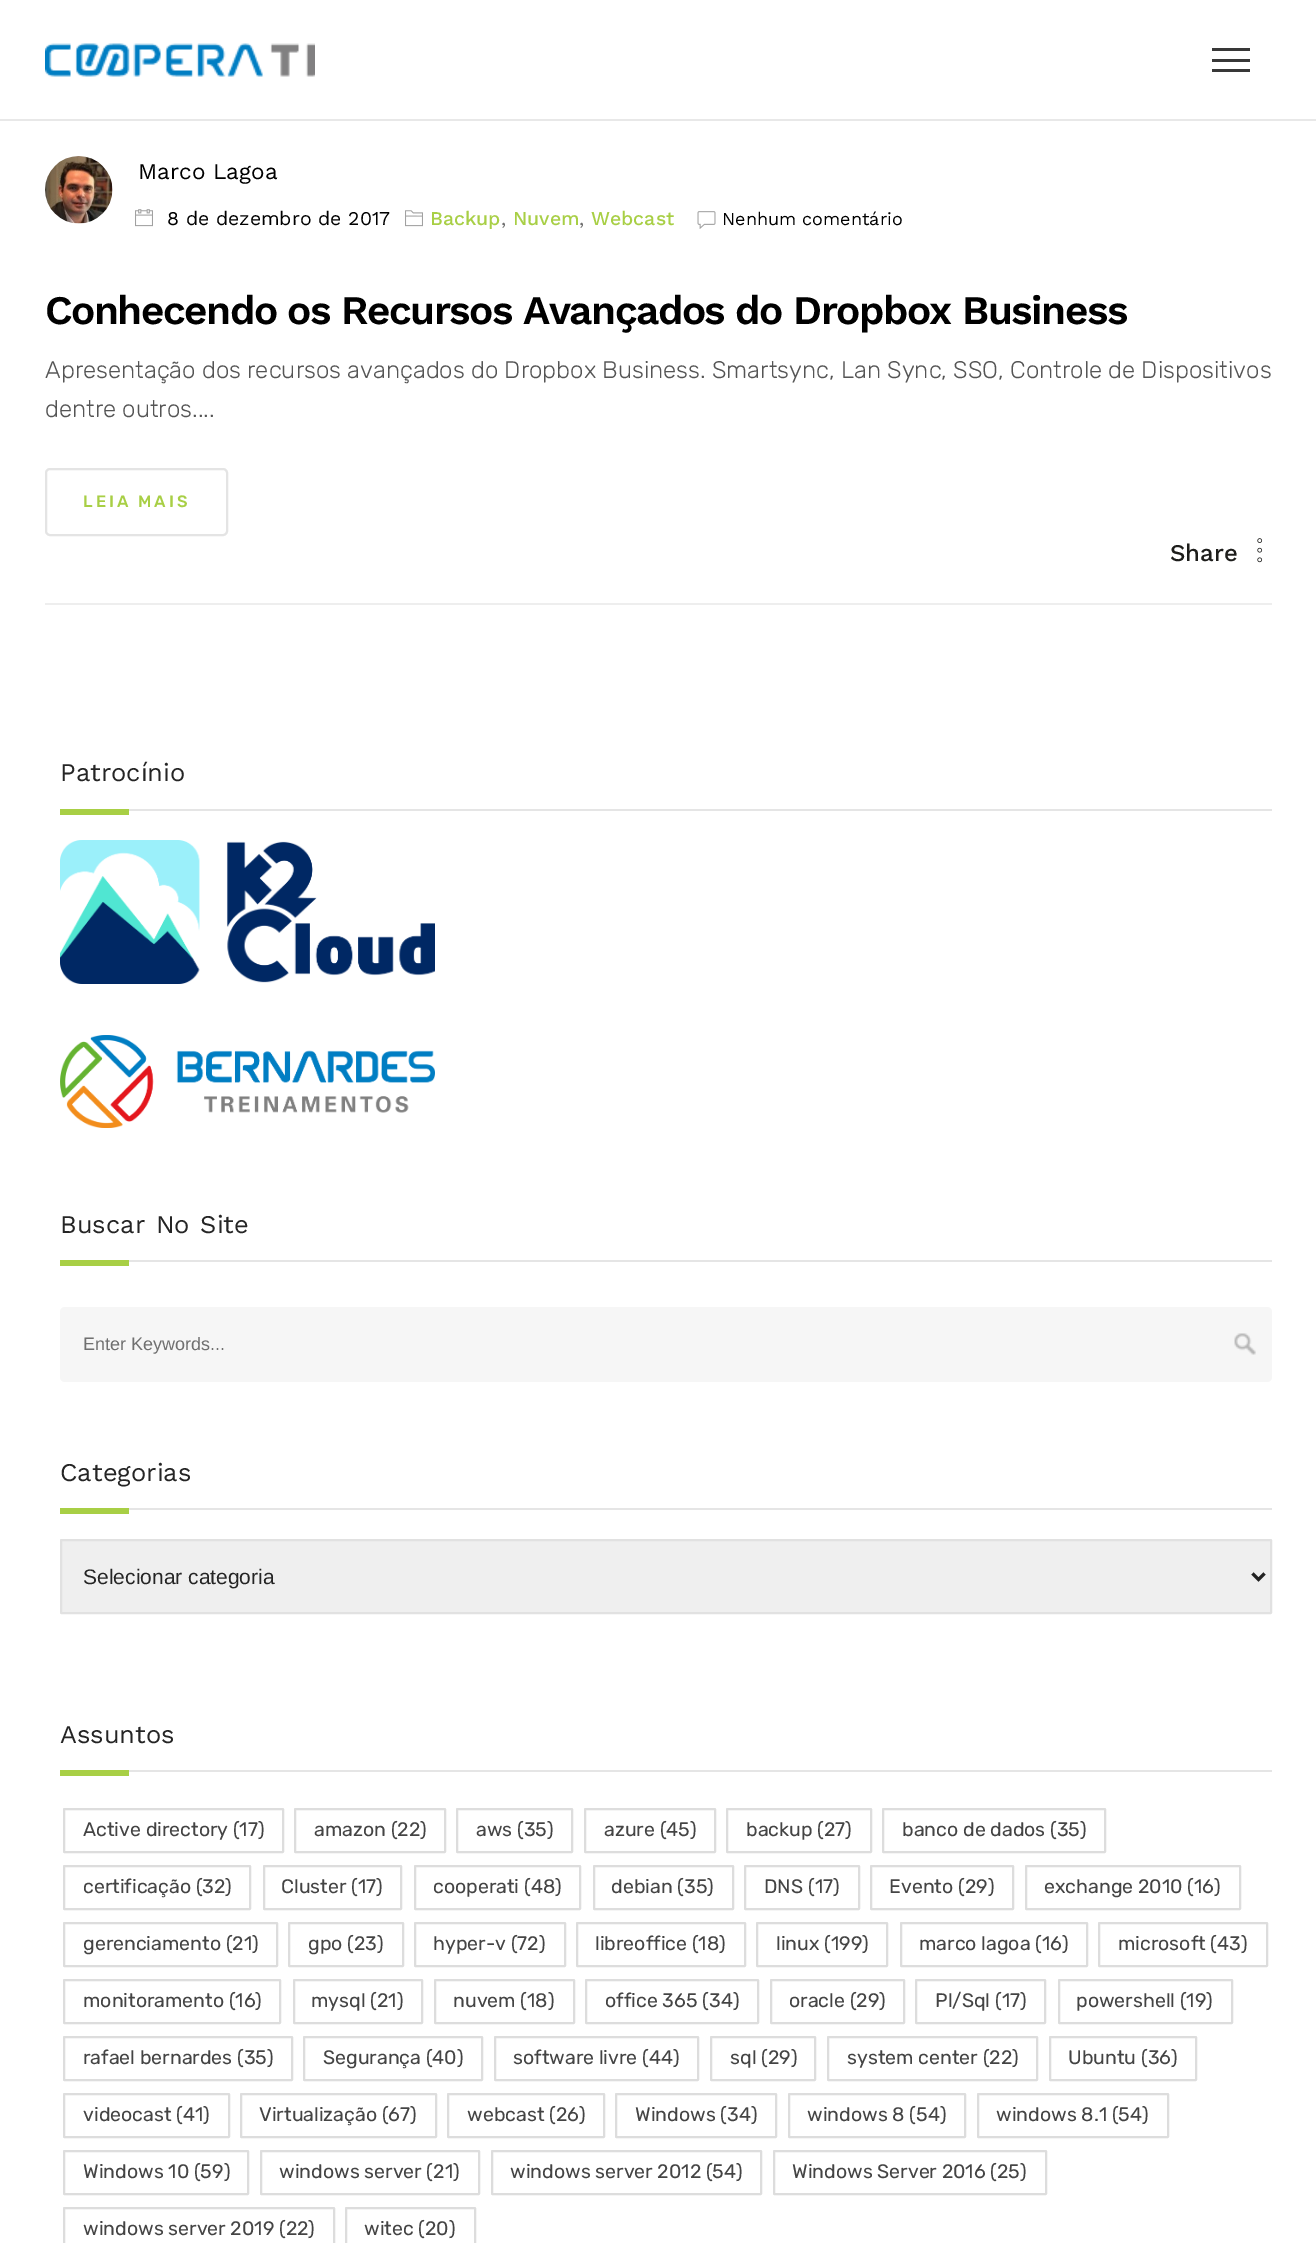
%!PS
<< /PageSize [1316 2243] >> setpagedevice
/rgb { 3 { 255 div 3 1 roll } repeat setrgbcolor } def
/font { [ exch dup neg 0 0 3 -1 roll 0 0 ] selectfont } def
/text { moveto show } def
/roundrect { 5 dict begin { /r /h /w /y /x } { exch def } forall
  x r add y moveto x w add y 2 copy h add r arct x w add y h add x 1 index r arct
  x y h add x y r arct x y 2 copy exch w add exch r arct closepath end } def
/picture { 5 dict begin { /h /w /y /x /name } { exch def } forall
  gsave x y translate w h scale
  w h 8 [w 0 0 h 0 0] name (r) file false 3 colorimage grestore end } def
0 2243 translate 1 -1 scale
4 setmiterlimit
255 255 255 rgb
0 0 1316 2243 rectfill
232 232 232 rgb
0 119 1316 2 rectfill
(img_01.rgb) 45 43 270 34 picture
56 56 56 rgb
1212 59 38 3 rectfill
1212 48 38 3 rectfill
1212 69 38 3 rectfill
238 238 238 rgb
45 603 1227 2 rectfill
(img_02.rgb) 45 156 68 68 picture
(img_03.rgb) 135 209 18 18 picture
(img_04.rgb) 405 210 18 17 picture
(img_05.rgb) 697 211 19 18 picture
228 228 228 rgb
2 setlinewidth
46 469 181 66 4 roundrect stroke
(img_06.rgb) 1257 538 6 25 picture
229 229 229 rgb
129 809 1143 2 rectfill
168 207 69 rgb
60 809 69 6 rectfill
(img_07.rgb) 60 840 375 144 picture
(img_08.rgb) 60 1035 375 93 picture
229 229 229 rgb
129 1260 1143 2 rectfill
168 207 69 rgb
60 1260 69 6 rectfill
246 246 246 rgb
60 1307 1212 75 5 roundrect fill
(img_09.rgb) 1234 1333 22 22 picture
229 229 229 rgb
129 1508 1143 2 rectfill
168 207 69 rgb
60 1508 69 6 rectfill
239 239 239 rgb
61 1540 1210 73 0.5 roundrect gsave fill grestore
225 225 225 rgb
stroke
34 34 34 rgb
3 setlinewidth
1252.5 1573.5 moveto 6 6 rlineto 6 -6 rlineto stroke
229 229 229 rgb
129 1770 1143 2 rectfill
168 207 69 rgb
60 1770 69 6 rectfill
221 221 221 rgb
2 setlinewidth
64 1809 219 43 0.5 roundrect stroke
295 1809 150 43 0.5 roundrect stroke
457 1809 115 43 0.5 roundrect stroke
585 1809 130 43 0.5 roundrect stroke
727 1809 144 43 0.5 roundrect stroke
883 1809 222 43 0.5 roundrect stroke
64 1866 186 43 0.5 roundrect stroke
264 1866 137 43 0.5 roundrect stroke
415 1866 165 43 0.5 roundrect stroke
594 1866 139 43 0.5 roundrect stroke
745 1866 114 43 0.5 roundrect stroke
871 1866 142 43 0.5 roundrect stroke
1026 1866 214 43 0.5 roundrect stroke
64 1923 213 43 0.5 roundrect stroke
289 1923 114 43 0.5 roundrect stroke
415 1923 150 43 0.5 roundrect stroke
577 1923 168 43 0.5 roundrect stroke
757 1923 130 43 0.5 roundrect stroke
901 1923 186 43 0.5 roundrect stroke
1099 1923 168 43 0.5 roundrect stroke
64 1980 216 43 0.5 roundrect stroke
294 1980 128 43 0.5 roundrect stroke
435 1980 139 43 0.5 roundrect stroke
586 1980 172 43 0.5 roundrect stroke
771 1980 133 43 0.5 roundrect stroke
916 1980 129 43 0.5 roundrect stroke
1059 1980 173 43 0.5 roundrect stroke
64 2037 228 43 0.5 roundrect stroke
304 2037 178 43 0.5 roundrect stroke
495 2037 203 43 0.5 roundrect stroke
711 2037 104 43 0.5 roundrect stroke
828 2037 209 43 0.5 roundrect stroke
1050 2037 146 43 0.5 roundrect stroke
64 2094 165 43 0.5 roundrect stroke
241 2094 195 43 0.5 roundrect stroke
448 2094 156 43 0.5 roundrect stroke
616 2094 160 43 0.5 roundrect stroke
789 2094 176 43 0.5 roundrect stroke
978 2094 190 43 0.5 roundrect stroke
64 2151 184 43 0.5 roundrect stroke
261 2151 218 43 0.5 roundrect stroke
492 2151 269 43 0.5 roundrect stroke
774 2151 272 43 0.5 roundrect stroke
64 2208 270 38 0.5 roundrect stroke
346 2208 129 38 0.5 roundrect stroke
/WorkSans-Regular 22.5 font
0 0 0 rgb
(Marco Lagoa) 138 179 text
/WorkSans-Regular 19.5 font
(8 de dezembro de 2017) 167 225 text
/WorkSans-Medium 19.5 font
168 207 69 rgb
(Backup) 430 225 text
/WorkSans-Regular 19.5 font
112 112 112 rgb
(,) 501 225 text
/WorkSans-Medium 19.5 font
168 207 69 rgb
(Nuvem) 513 225 text
/WorkSans-Regular 19.5 font
112 112 112 rgb
(,) 579 225 text
/WorkSans-Medium 19.5 font
168 207 69 rgb
(Webcast) 591 225 text
/WorkSans-Regular 18 font
0 0 0 rgb
(Nenhum comentário) 722 225 text
/WorkSans-SemiBold 40.5 font
45 324 moveto -1.5 0 (Conhecendo os Recursos Avançados do Dropbox Business) ashow
/Rubik-Light 24 font
85 85 85 rgb
(Apresentação dos recursos avançados do Dropbox Business. Smartsync, Lan Sync, SSO, Controle de Dispositivos) 45 378 text
(dentre outros....) 45 417 text
/Rubik-Medium 16.5 font
168 207 69 rgb
83 507 moveto 3 0 (LEIA MAIS) ashow
/WorkSans-Medium 24 font
29 29 27 rgb
(Share) 1170 561 text
/WorkSans-Regular 25.5 font
37 37 37 rgb
(Patrocínio) 60 781 text
60 1233 moveto 2 0 32 (Buscar No Site) widthshow
/LiberationSans-Regular 18 font
112 112 112 rgb
(Enter Keywords...) 83 1350 text
/WorkSans-Regular 25.5 font
37 37 37 rgb
(Categorias) 60 1481 text
/LiberationSans-Regular 21 font
(Selecionar categoria) 83 1584 text
/WorkSans-Regular 25.5 font
(Assuntos) 60 1743 text
/Rubik-Regular 19.5 font
68 68 68 rgb
(Active directory \(17\)) 83 1836 text
(amazon \(22\)) 314 1836 text
(aws \(35\)) 476 1836 text
(azure \(45\)) 604 1836 text
(backup \(27\)) 746 1836 text
(banco de dados \(35\)) 902 1836 text
(certificação \(32\)) 83 1893 text
(Cluster \(17\)) 281 1893 text
(cooperati \(48\)) 433 1893 text
(debian \(35\)) 611 1893 text
(DNS \(17\)) 764 1893 text
(Evento \(29\)) 889 1893 text
(exchange 2010 \(16\)) 1044 1893 text
(gerenciamento \(21\)) 83 1950 text
(gpo \(23\)) 308 1950 text
(hyper-v \(72\)) 433 1950 text
(libreoffice \(18\)) 595 1950 text
(linux \(199\)) 776 1950 text
(marco lagoa \(16\)) 919 1950 text
(microsoft \(43\)) 1118 1950 text
(monitoramento \(16\)) 83 2007 text
(mysql \(21\)) 311 2007 text
(nuvem \(18\)) 453 2007 text
(office 365 \(34\)) 605 2007 text
(oracle \(29\)) 789 2007 text
(Pl/Sql \(17\)) 935 2007 text
(powershell \(19\)) 1076 2007 text
(rafael bernardes \(35\)) 83 2064 text
(Segurança \(40\)) 323 2064 text
(software livre \(44\)) 513 2064 text
(sql \(29\)) 730 2064 text
(system center \(22\)) 847 2064 text
(Ubuntu \(36\)) 1068 2064 text
(videocast \(41\)) 83 2121 text
(Virtualização \(67\)) 259 2121 text
(webcast \(26\)) 467 2121 text
(Windows \(34\)) 635 2121 text
(windows 8 \(54\)) 807 2121 text
(windows 8.1 \(54\)) 996 2121 text
(Windows 10 \(59\)) 83 2178 text
(windows server \(21\)) 279 2178 text
(windows server 2012 \(54\)) 510 2178 text
(Windows Server 2016 \(25\)) 792 2178 text
(windows server 2019 \(22\)) 83 2235 text
(witec \(20\)) 364 2235 text
showpage
